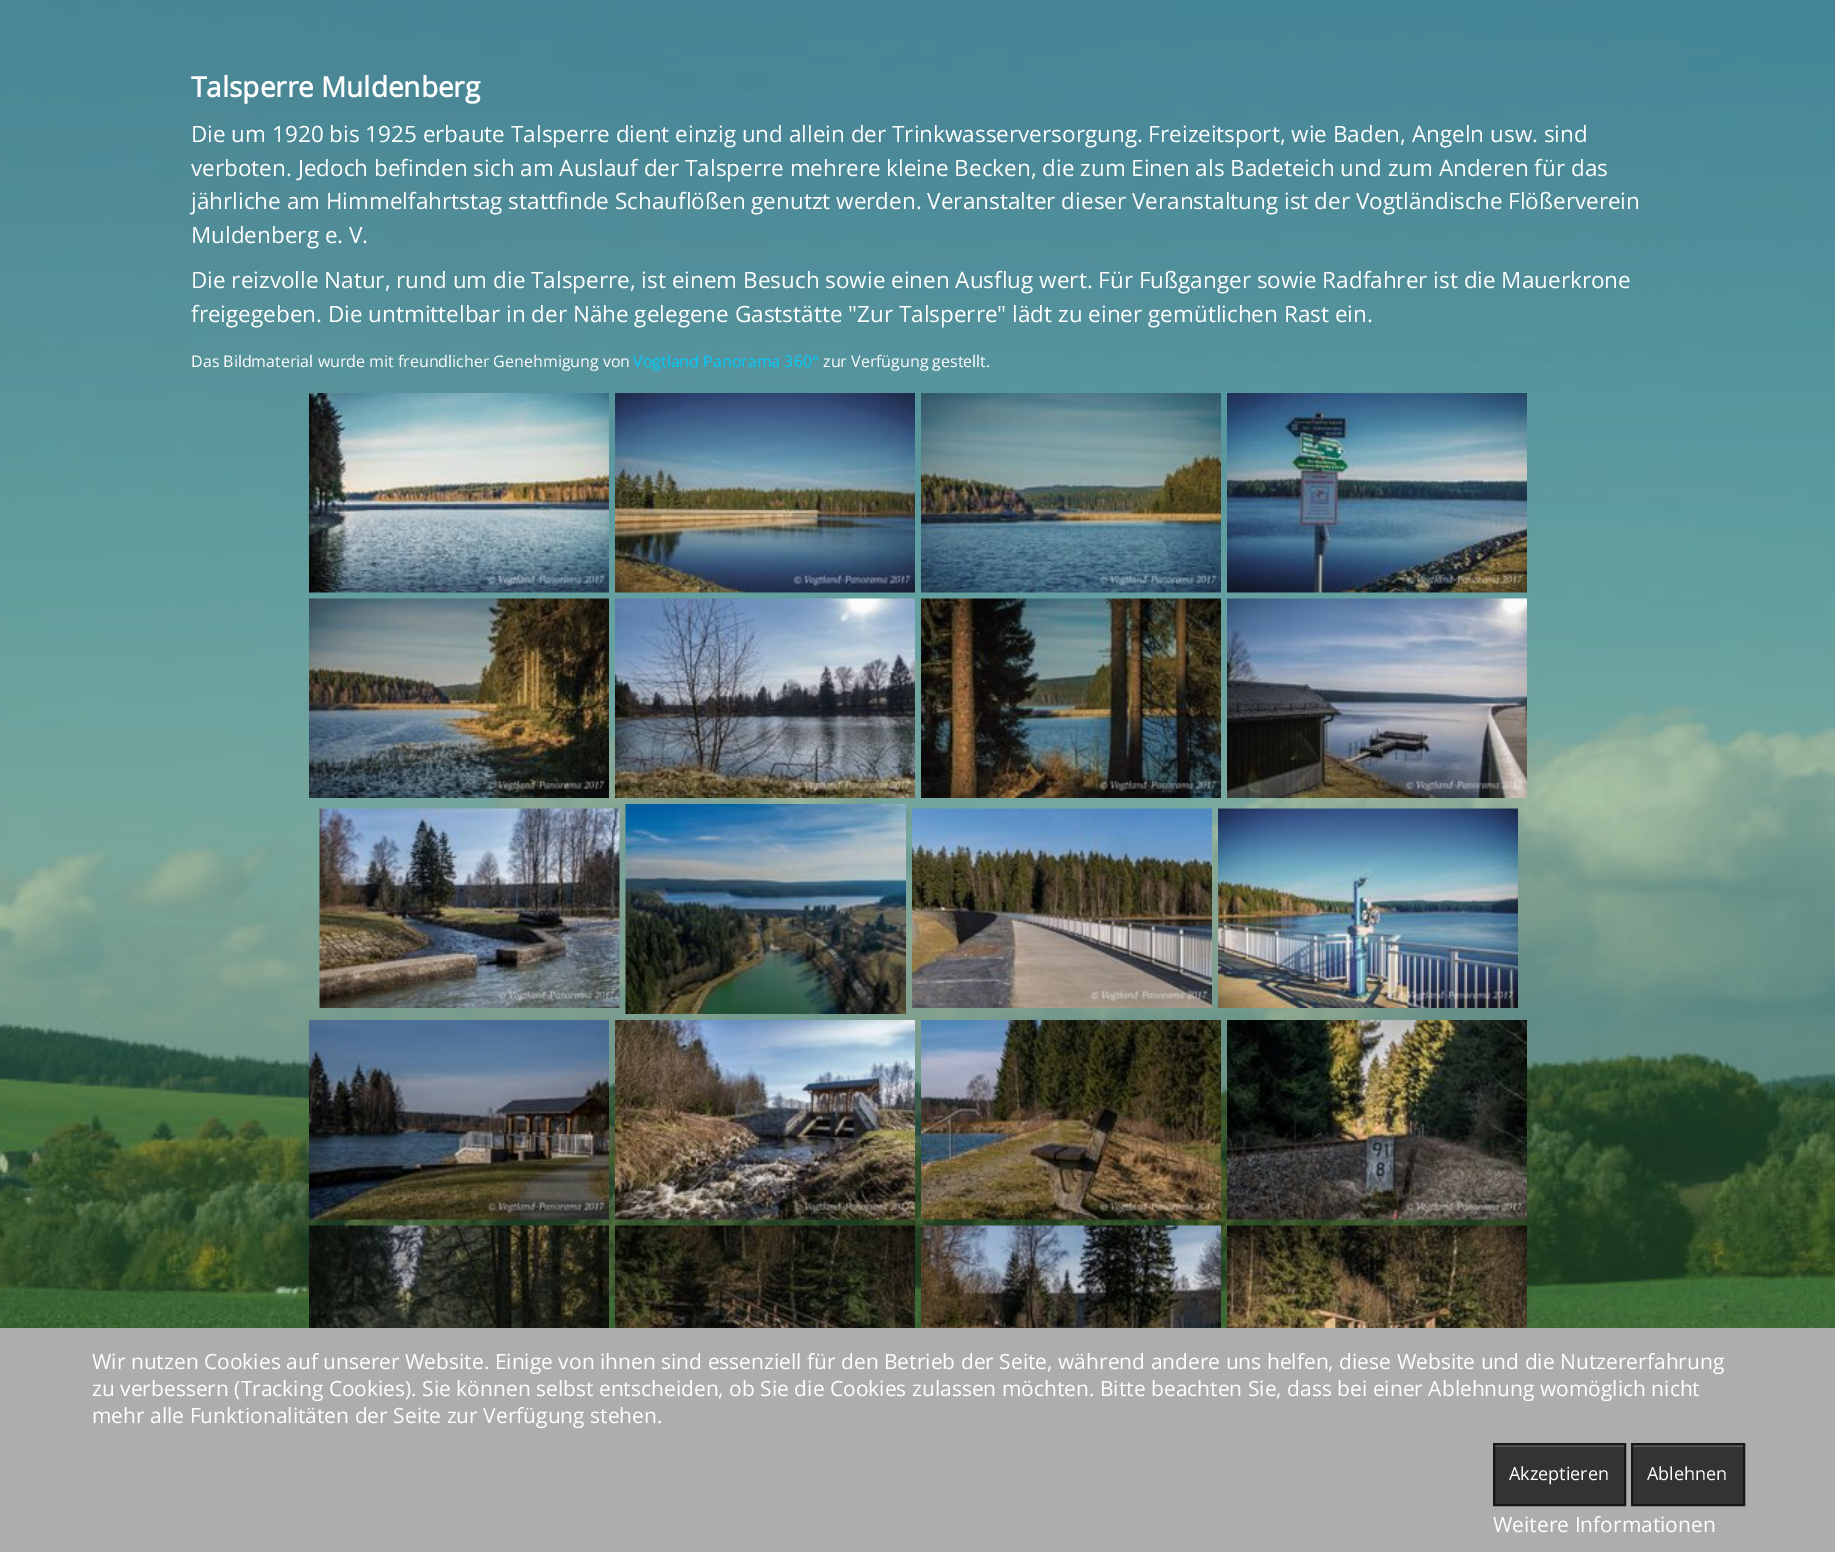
%!PS
<< /PageSize [1835 1552] >> setpagedevice
/rgb { 3 { 255 div 3 1 roll } repeat setrgbcolor } def
/font { [ exch dup neg 0 0 3 -1 roll 0 0 ] selectfont } def
/text { moveto show } def
/picture { 5 dict begin { /h /w /y /x /name } { exch def } forall
  gsave x y translate w h scale
  w h 8 [w 0 0 h 0 0] name (r) file false 3 colorimage grestore end } def
0 1552 translate 1 -1 scale
4 setmiterlimit
255 255 255 rgb
0 0 1835 1552 rectfill
(img_01.rgb) 0 0 1835 1328 picture
(img_02.rgb) 309 393 300 200 picture
(img_03.rgb) 615 393 300 200 picture
(img_04.rgb) 921 393 300 200 picture
(img_05.rgb) 1227 393 300 200 picture
(img_06.rgb) 309 598 300 200 picture
(img_07.rgb) 615 598 300 200 picture
(img_08.rgb) 921 598 300 200 picture
(img_09.rgb) 1227 598 300 200 picture
(img_10.rgb) 319 808 301 200 picture
(img_11.rgb) 625 804 281 210 picture
(img_12.rgb) 912 808 300 200 picture
(img_13.rgb) 1218 808 300 200 picture
(img_14.rgb) 309 1020 300 200 picture
(img_15.rgb) 615 1020 300 200 picture
(img_16.rgb) 921 1020 300 200 picture
(img_17.rgb) 1227 1020 300 200 picture
(img_18.rgb) 309 1225 300 103 picture
(img_19.rgb) 615 1225 300 103 picture
(img_20.rgb) 921 1225 300 103 picture
(img_21.rgb) 1227 1225 300 103 picture
173 173 173 rgb
0 1328 1835 224 rectfill
51 51 51 rgb
1495 1447 129 57 rectfill
92 92 92 rgb
1494 1445 131 2 rectfill
23 23 23 rgb
2 setlinewidth
1494 1444 131 61 rectstroke
51 51 51 rgb
1633 1447 110 57 rectfill
92 92 92 rgb
1632 1445 111 2 rectfill
23 23 23 rgb
1632 1444 112 61 rectstroke
/OpenSans-Bold 28 font
255 255 255 rgb
(Talsperre Muldenberg) 191 97 text
/OpenSans-Regular 22.5 font
(Die um 1920 bis 1925 erbaute Talsperre dient einzig und allein der Trinkwasserversorgung. Freizeitsport, wie Baden, Angeln usw. sind) 191 142 text
(verboten. Jedoch befinden sich am Auslauf der Talsperre mehrere kleine Becken, die zum Einen als Badeteich und zum Anderen für das) 191 176 text
(jährliche am Himmelfahrtstag stattfinde Schauflößen genutzt werden. Veranstalter dieser Veranstaltung ist der Vogtländische Flößerverein) 191 209 text
(Muldenberg e. V.) 191 243 text
(Die reizvolle Natur, rund um die Talsperre, ist einem Besuch sowie einen Ausflug wert. Für Fußganger sowie Radfahrer ist die Mauerkrone) 191 288 text
(freigegeben. Die untmittelbar in der Nähe gelegene Gaststätte "Zur Talsperre" lädt zu einer gemütlichen Rast ein.) 191 322 text
/OpenSans-Regular 16 font
(Das Bildmaterial wurde mit freundlicher Genehmigung von) 191 367 text
0 204 255 rgb
(Vogtland Panorama 360°) 633 367 text
255 255 255 rgb
(zur Verfügung gestellt.) 823 367 text
/OpenSans-Regular 21 font
(Wir nutzen Cookies auf unserer Website. Einige von ihnen sind essenziell für den Betrieb der Seite, während andere uns helfen, diese Website und die Nutzererfahrung) 92 1369 text
(zu verbessern \(Tracking Cookies\). Sie können selbst entscheiden, ob Sie die Cookies zulassen möchten. Bitte beachten Sie, dass bei einer Ablehnung womöglich nicht) 92 1396 text
(mehr alle Funktionalitäten der Seite zur Verfügung stehen.) 92 1423 text
/OpenSans-Regular 18 font
(Akzeptieren) 1509 1480 text
(Ablehnen) 1647 1480 text
/OpenSans-Regular 21 font
(Weitere Informationen) 1493 1532 text
showpage
